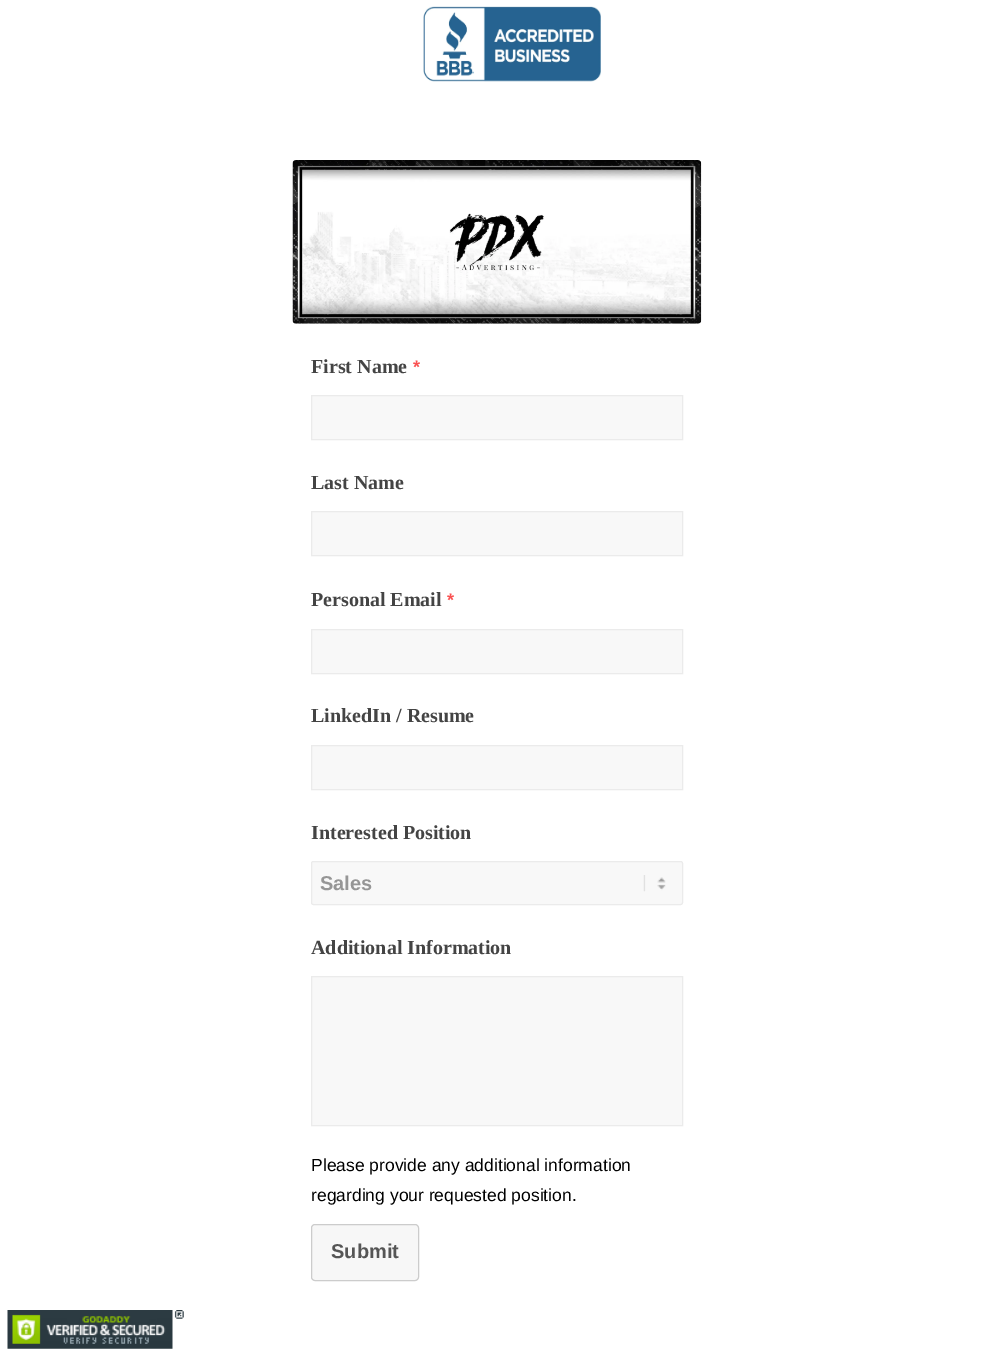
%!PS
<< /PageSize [993 1356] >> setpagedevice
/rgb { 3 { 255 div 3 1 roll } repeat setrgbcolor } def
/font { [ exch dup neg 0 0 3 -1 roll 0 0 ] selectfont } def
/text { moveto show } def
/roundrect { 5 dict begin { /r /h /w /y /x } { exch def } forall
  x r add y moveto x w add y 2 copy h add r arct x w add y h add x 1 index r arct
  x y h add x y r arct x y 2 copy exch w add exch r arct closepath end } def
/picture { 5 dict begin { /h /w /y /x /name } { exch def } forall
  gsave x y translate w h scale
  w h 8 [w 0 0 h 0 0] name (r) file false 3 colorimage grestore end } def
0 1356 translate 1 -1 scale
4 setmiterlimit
255 255 255 rgb
0 0 993 1356 rectfill
(img_01.rgb) 423 6 178 76 picture
(img_02.rgb) 292 160 410 164 picture
248 248 248 rgb
311.5 395.5 moveto 371 0 rlineto 0 44 rlineto -371 0 rlineto closepath gsave fill grestore
235 235 235 rgb
stroke
248 248 248 rgb
311.5 511.5 moveto 371 0 rlineto 0 44 rlineto -371 0 rlineto closepath gsave fill grestore
235 235 235 rgb
stroke
248 248 248 rgb
311.5 629.5 moveto 371 0 rlineto 0 44 rlineto -371 0 rlineto closepath gsave fill grestore
235 235 235 rgb
stroke
248 248 248 rgb
311.5 745.5 moveto 371 0 rlineto 0 44 rlineto -371 0 rlineto closepath gsave fill grestore
235 235 235 rgb
stroke
248 248 248 rgb
311 861 372 44 2.5 roundrect fill
(img_03.rgb) 643 875 23 17 picture
235 235 235 rgb
311.5 861.5 371 43 2 roundrect stroke
248 248 248 rgb
311.5 976.5 moveto 371 0 rlineto 0 149 rlineto -371 0 rlineto closepath gsave fill grestore
235 235 235 rgb
stroke
247 247 247 rgb
311.5 1224.5 107 56 3.5 roundrect gsave fill grestore
204 204 204 rgb
stroke
(img_04.rgb) 7 1310 177 39 picture
/LiberationSerif-Bold 20 font
68 68 68 rgb
(First Name) 311 373 text
/LiberationSans-Bold 18 font
250 82 82 rgb
(*) 413 373 text
/LiberationSerif-Bold 20 font
68 68 68 rgb
(Last Name) 311 489 text
(Personal Email) 311 606 text
/LiberationSans-Bold 18 font
250 82 82 rgb
(*) 447 606 text
/LiberationSerif-Bold 20 font
68 68 68 rgb
(LinkedIn / Resume) 311 722 text
(Interested Position) 311 839 text
/LiberationSans-Bold 20 font
150 150 150 rgb
(Sales) 320 890 text
/LiberationSerif-Bold 20 font
68 68 68 rgb
(Additional Information) 311 954 text
/LiberationSans-Regular 17.5 font
0 0 0 rgb
(Please provide any additional information) 311 1171 text
(regarding your requested position.) 311 1201 text
/LiberationSans-Bold 20 font
85 85 85 rgb
(Submit) 331 1258 text
showpage
